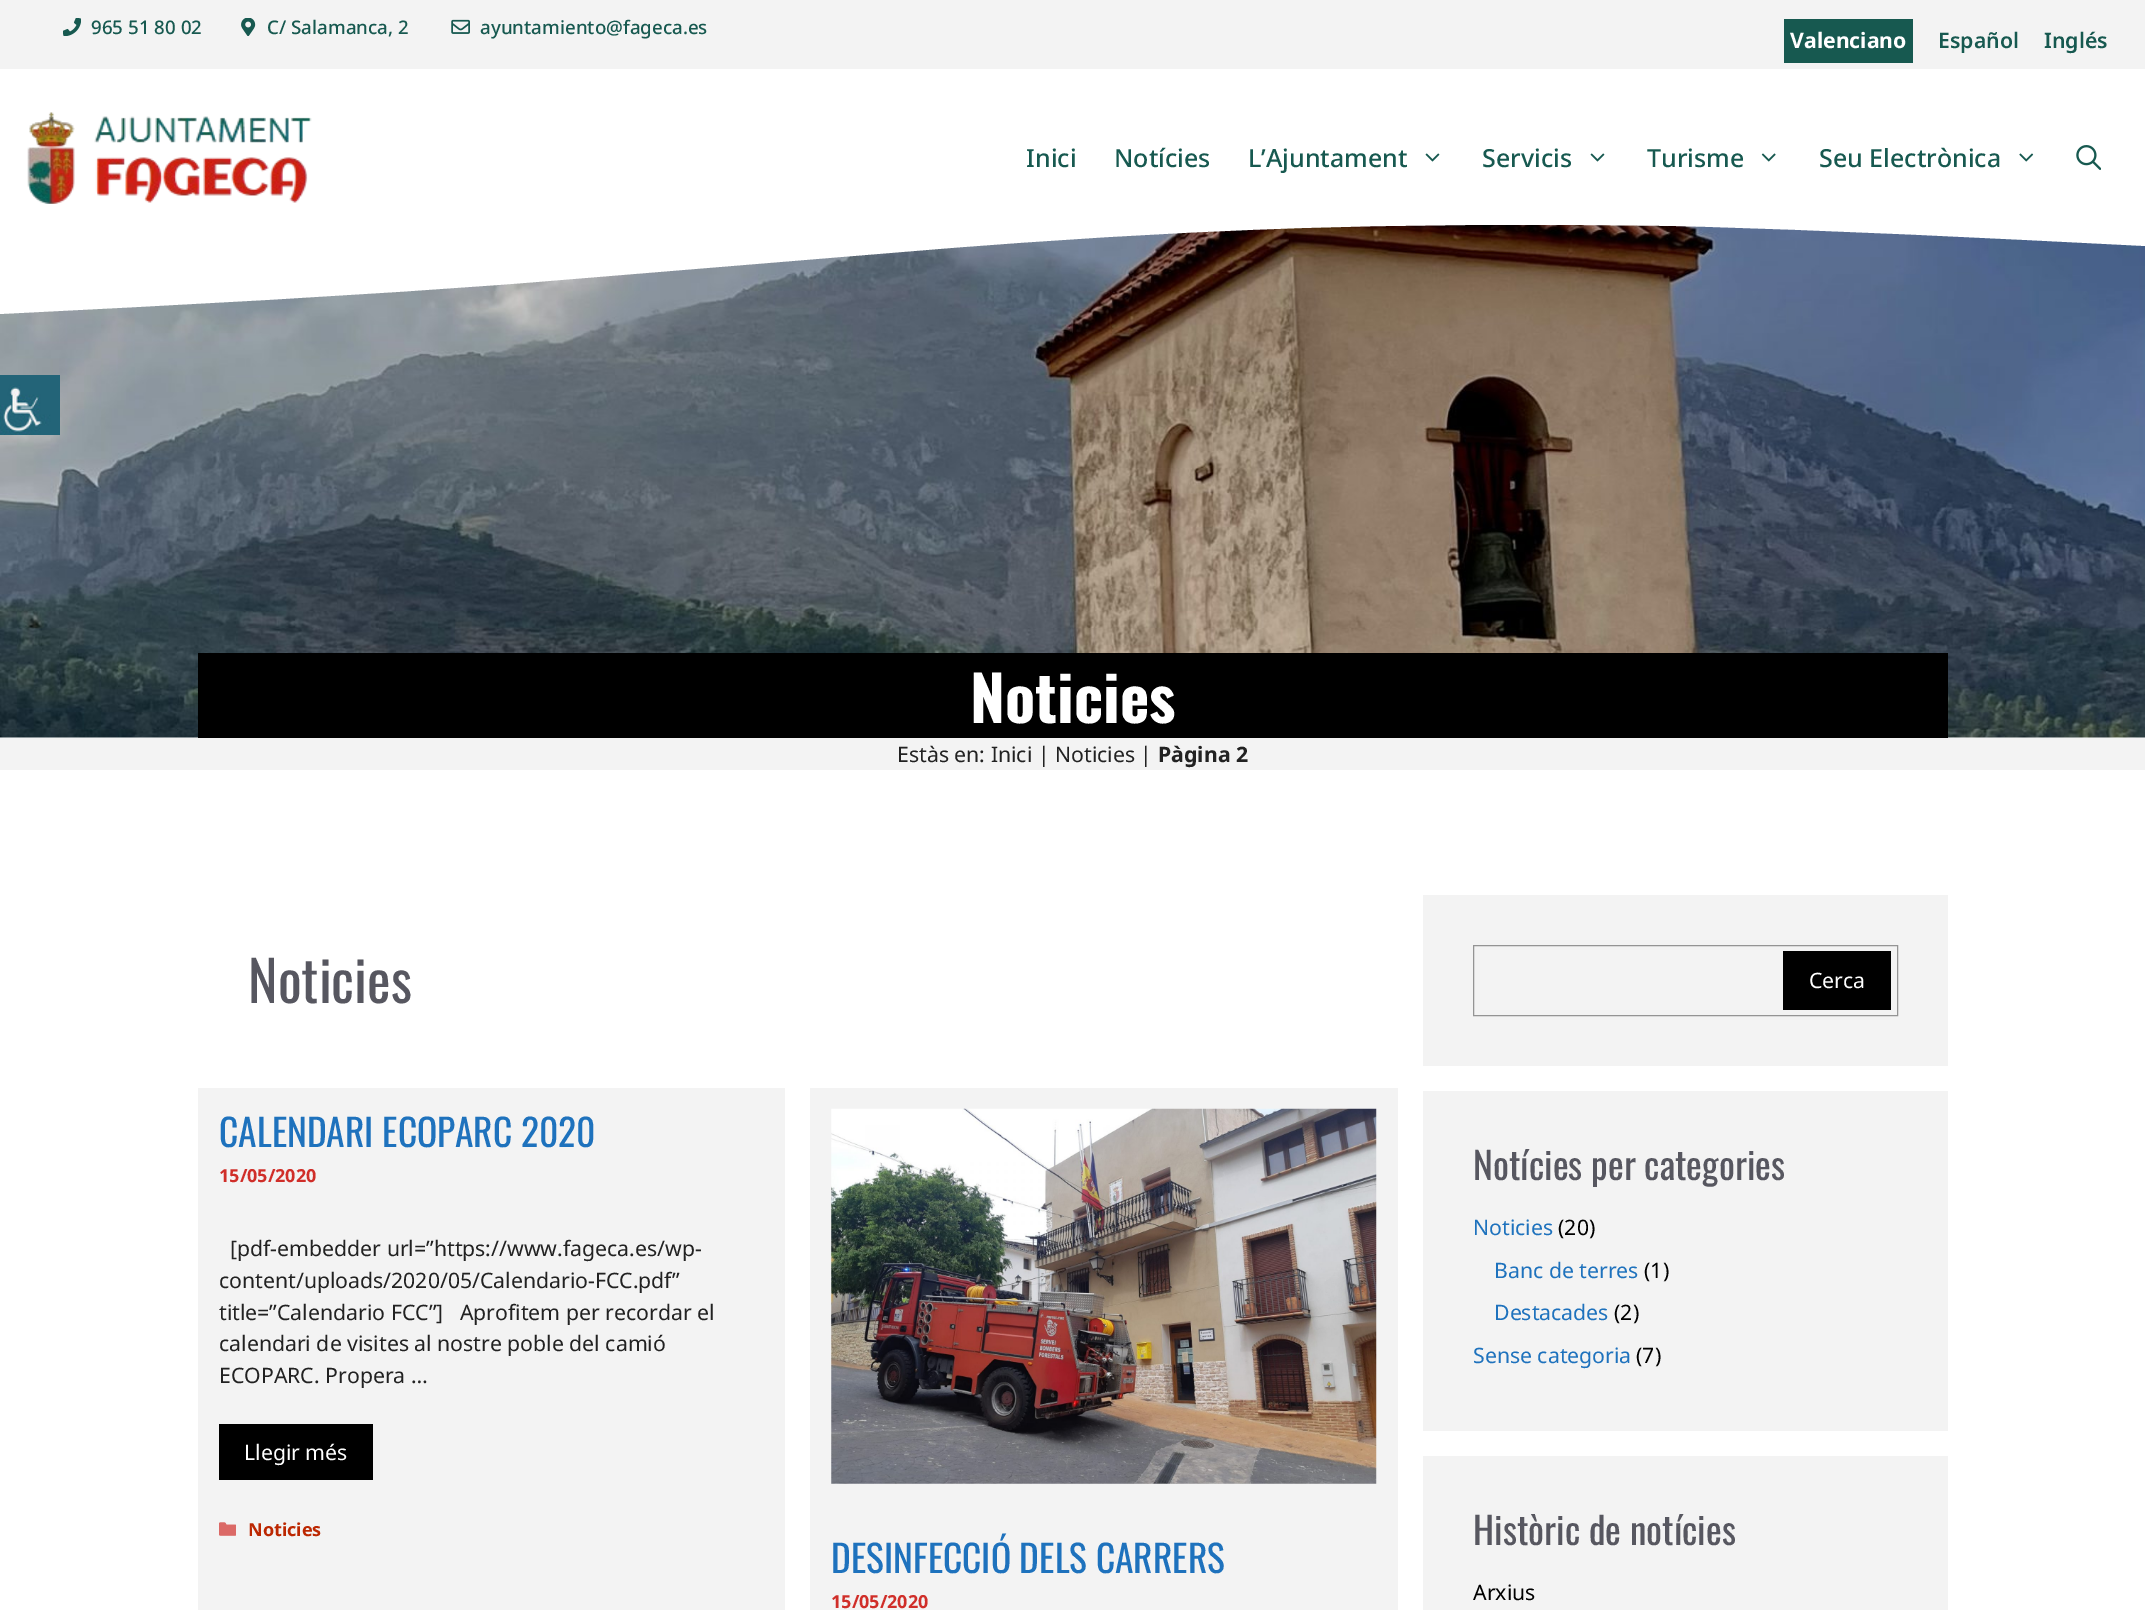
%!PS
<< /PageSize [2145 1610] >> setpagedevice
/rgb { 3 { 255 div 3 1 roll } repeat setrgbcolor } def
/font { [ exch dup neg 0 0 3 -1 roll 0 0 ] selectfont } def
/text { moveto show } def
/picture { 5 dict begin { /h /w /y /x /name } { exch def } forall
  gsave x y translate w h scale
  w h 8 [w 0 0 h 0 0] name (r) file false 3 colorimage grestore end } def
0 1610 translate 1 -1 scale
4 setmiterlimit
255 255 255 rgb
0 0 2145 1610 rectfill
243 243 243 rgb
0 0 2145 69 rectfill
(img_01.rgb) 63 18 18 18 picture
(img_02.rgb) 241 18 15 18 picture
(img_03.rgb) 451 19 19 15 picture
23 89 80 rgb
1784 19 129 44 rectfill
(img_04.rgb) 27 112 285 92 picture
(img_05.rgb) 1425 153 15 9 picture
(img_05.rgb) 1590 153 15 9 picture
(img_06.rgb) 1761 153 15 9 picture
(img_07.rgb) 2019 153 15 9 picture
(img_08.rgb) 2076 145 25 25 picture
(img_10.rgb) 0 224 2145 514 picture
(img_09.rgb) 0 375 60 60 picture
255 255 255 rgb
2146 246 moveto -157 -8 -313 -16 -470 -20 rcurveto -134 -2 -268 -2 -402 3 rcurveto -112 4 -224 11 -336 20 rcurveto -402 33 rlineto -179 14 -358 23 -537 32 rcurveto 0 -100 rlineto 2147 0 rlineto closepath fill
0 0 0 rgb
198 653 1750 85 rectfill
243 243 243 rgb
0 738 2145 32 rectfill
198 1088 587 522 rectfill
0 0 0 rgb
219 1424 154 56 rectfill
(img_11.rgb) 219 1522 17 14 picture
243 243 243 rgb
810 1088 588 522 rectfill
(img_12.rgb) 831 1108 546 376 picture
1423 895 525 171 rectfill
148 148 148 rgb
1473.5 945.5 424 70 rectstroke
0 0 0 rgb
1783 951 108 59 rectfill
243 243 243 rgb
1423 1091 525 340 rectfill
1423 1456 525 154 rectfill
/NotoSans-Medium 18.75 font
23 89 80 rgb
(965 51 80 02) 91 34 text
(C/ Salamanca, 2) 267 34 text
(ayuntamiento@fageca.es) 480 34 text
/NotoSans-Bold 21.25 font
255 255 255 rgb
(Valenciano) 1790 48 text
/NotoSans-SemiBold 21.25 font
23 89 80 rgb
(Español) 1938 48 text
(Inglés) 2044 48 text
/NotoSans-Medium 25 font
(Inici) 1026 167 text
(Notícies) 1114 167 text
(L’Ajuntament) 1248 167 text
(Servicis) 1482 167 text
(Turisme) 1647 167 text
(Seu Electrònica) 1819 167 text
/Oswald-Bold 62.5 font
255 255 255 rgb
(Noticies) 970 723 text
/NotoSans-Regular 21.25 font
34 34 34 rgb
(Estàs en: Inici | Noticies |) 897 762 text
/NotoSans-Bold 21.25 font
(Pàgina 2) 1158 762 text
/Oswald-Regular 56 font
87 87 96 rgb
(Noticies) 248 1003 text
/Oswald-Regular 37.5 font
30 114 189 rgb
(CALENDARI ECOPARC 2020) 219 1147 text
/NotoSans-Bold 18 font
208 46 41 rgb
(15/05/2020) 219 1182 text
/NotoSans-Regular 21.25 font
34 34 34 rgb
([pdf-embedder url=”https://www.fageca.es/wp-) 230 1256 text
(content/uploads/2020/05/Calendario-FCC.pdf”) 219 1288 text
(title=”Calendario FCC”]   Aprofitem per recordar el) 219 1320 text
(calendari de visites al nostre poble del camió) 219 1351 text
(ECOPARC. Propera …) 219 1383 text
255 255 255 rgb
(Llegir més) 244 1460 text
/NotoSans-Bold 18 font
188 39 1 rgb
(Noticies) 248 1536 text
/Oswald-Regular 37.5 font
30 114 189 rgb
(DESINFECCIÓ DELS CARRERS) 831 1573 text
/NotoSans-Bold 18 font
208 46 41 rgb
(15/05/2020) 831 1608 text
/NotoSans-Regular 21.25 font
255 255 255 rgb
(Cerca) 1809 988 text
/Oswald-Regular 37.5 font
87 87 96 rgb
(Notícies per categories) 1473 1180 text
/NotoSans-Regular 21.25 font
30 114 189 rgb
(Noticies) 1473 1235 text
0 0 0 rgb
(\(20\)) 1558 1235 text
30 114 189 rgb
(Banc de terres) 1494 1278 text
0 0 0 rgb
(\(1\)) 1644 1278 text
30 114 189 rgb
(Destacades) 1494 1320 text
0 0 0 rgb
(\(2\)) 1614 1320 text
30 114 189 rgb
(Sense categoria) 1473 1363 text
0 0 0 rgb
(\(7\)) 1636 1363 text
/Oswald-Regular 37.5 font
87 87 96 rgb
(Històric de notícies) 1473 1545 text
/NotoSans-Regular 21.25 font
0 0 0 rgb
(Arxius) 1473 1600 text
showpage
